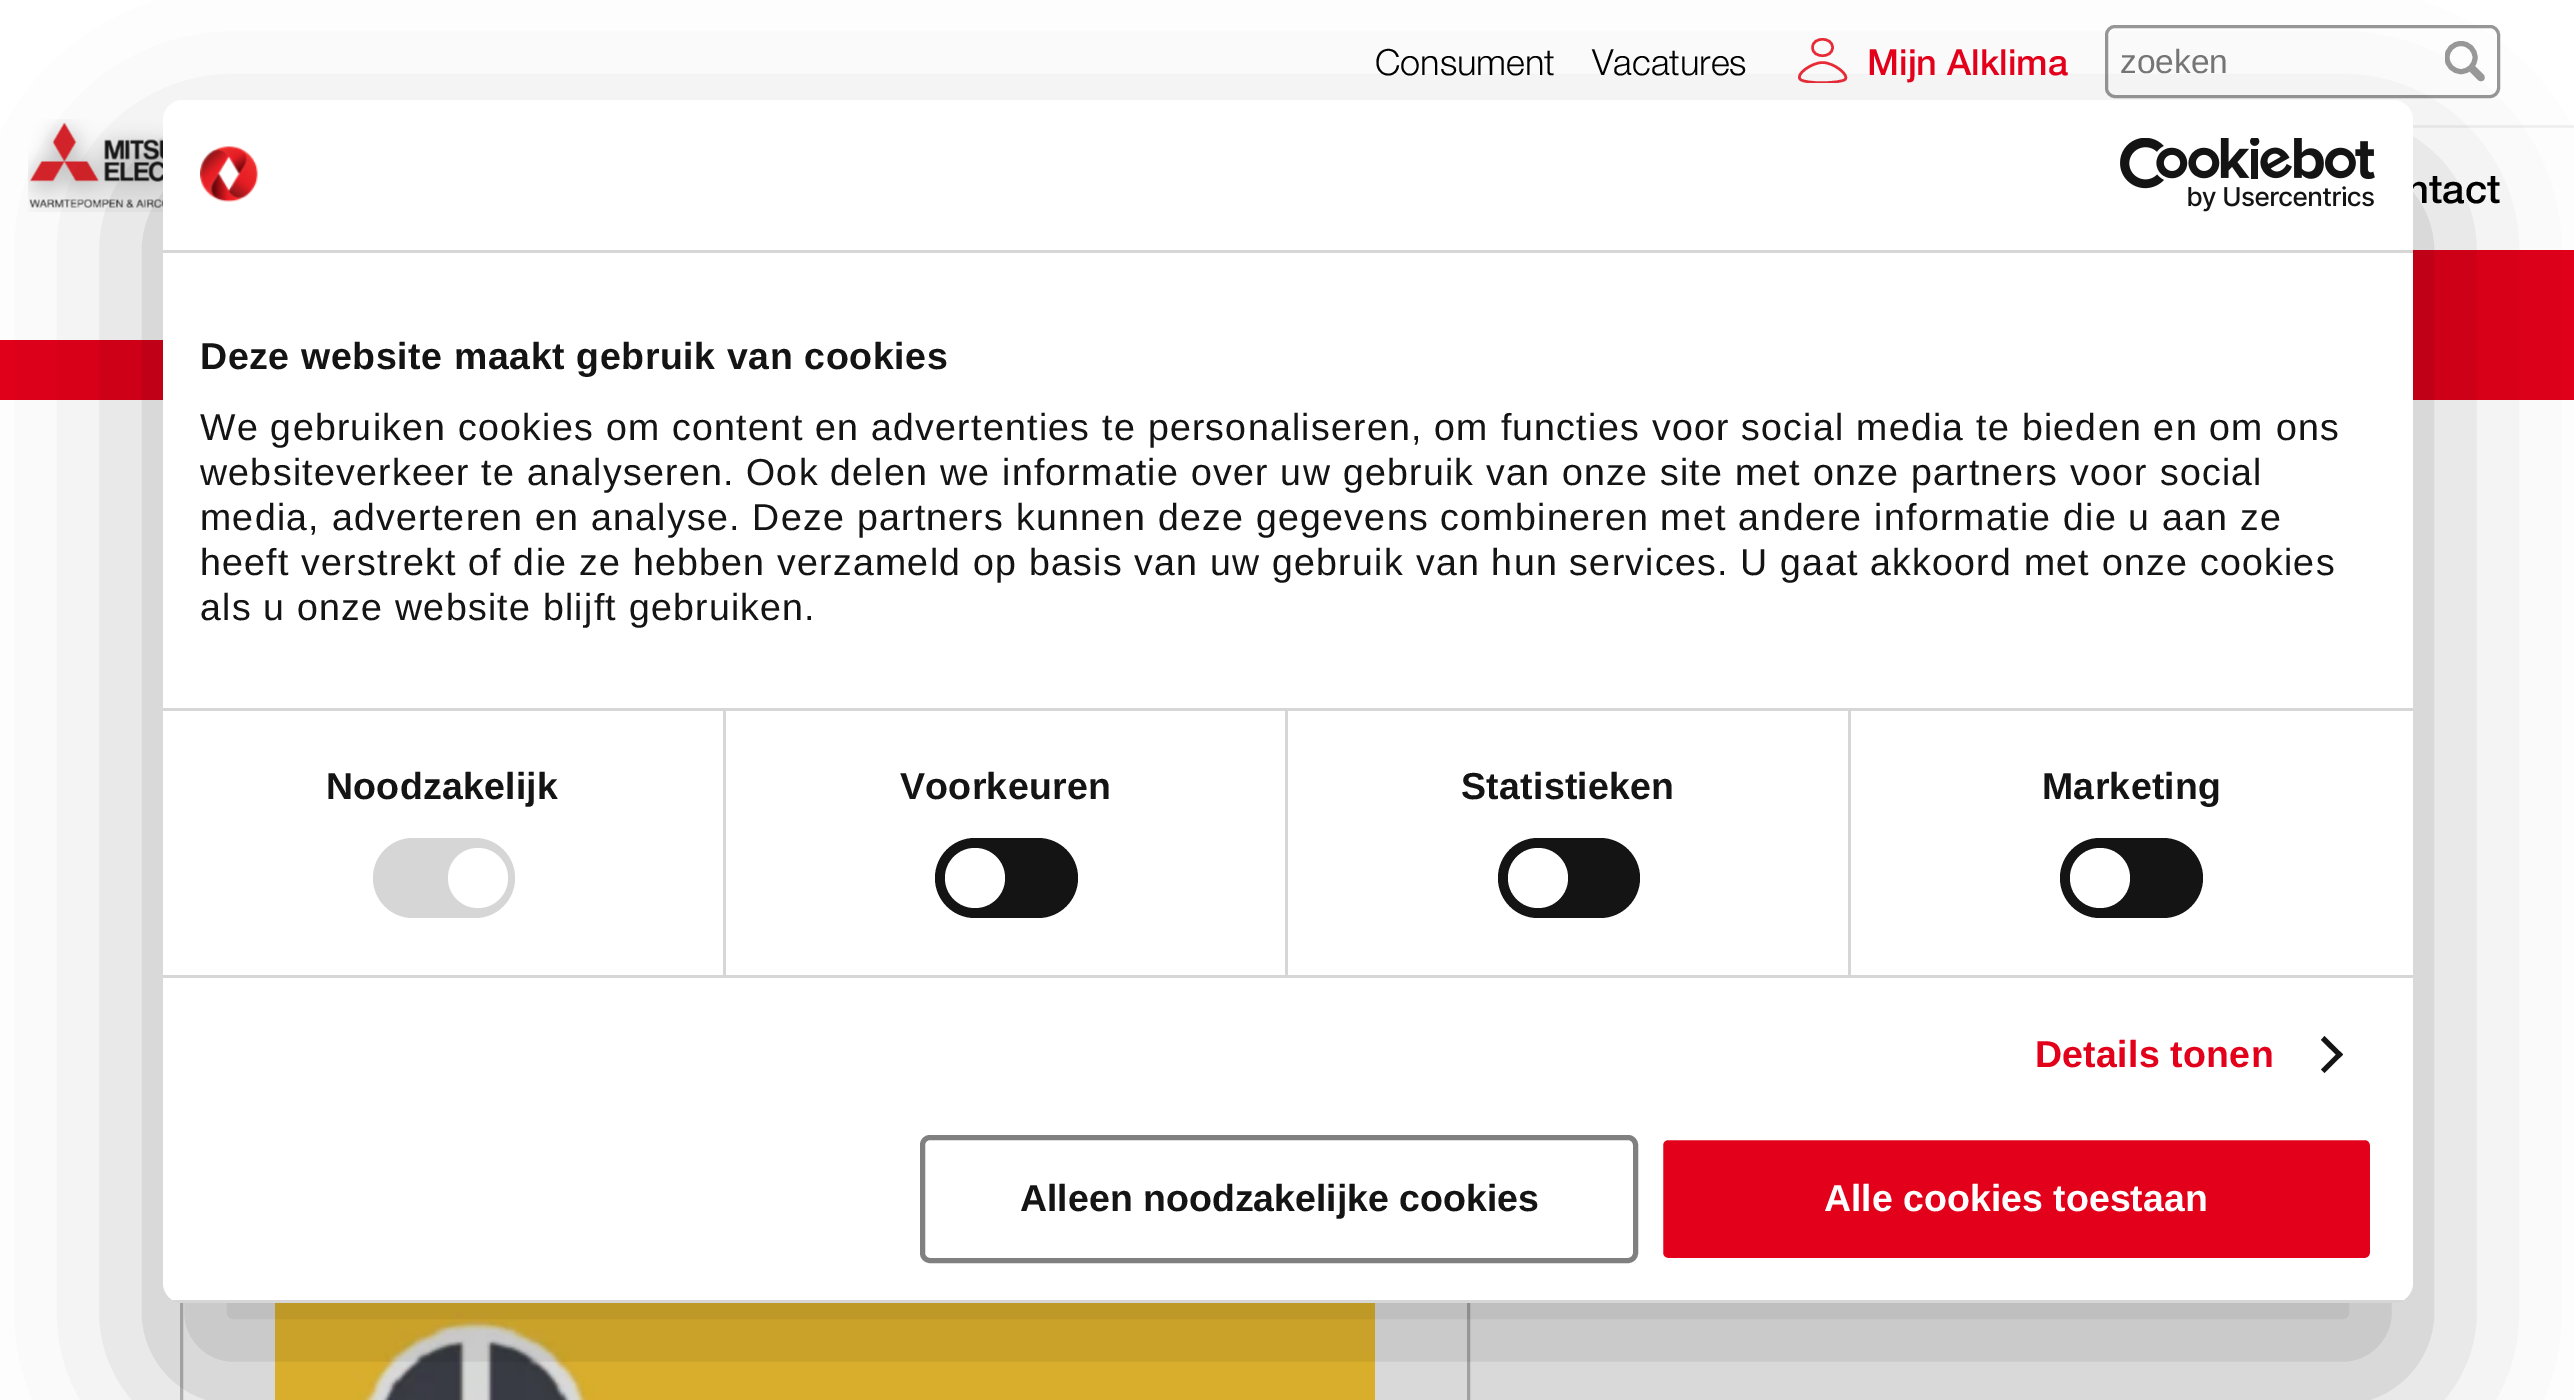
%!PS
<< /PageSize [2574 1400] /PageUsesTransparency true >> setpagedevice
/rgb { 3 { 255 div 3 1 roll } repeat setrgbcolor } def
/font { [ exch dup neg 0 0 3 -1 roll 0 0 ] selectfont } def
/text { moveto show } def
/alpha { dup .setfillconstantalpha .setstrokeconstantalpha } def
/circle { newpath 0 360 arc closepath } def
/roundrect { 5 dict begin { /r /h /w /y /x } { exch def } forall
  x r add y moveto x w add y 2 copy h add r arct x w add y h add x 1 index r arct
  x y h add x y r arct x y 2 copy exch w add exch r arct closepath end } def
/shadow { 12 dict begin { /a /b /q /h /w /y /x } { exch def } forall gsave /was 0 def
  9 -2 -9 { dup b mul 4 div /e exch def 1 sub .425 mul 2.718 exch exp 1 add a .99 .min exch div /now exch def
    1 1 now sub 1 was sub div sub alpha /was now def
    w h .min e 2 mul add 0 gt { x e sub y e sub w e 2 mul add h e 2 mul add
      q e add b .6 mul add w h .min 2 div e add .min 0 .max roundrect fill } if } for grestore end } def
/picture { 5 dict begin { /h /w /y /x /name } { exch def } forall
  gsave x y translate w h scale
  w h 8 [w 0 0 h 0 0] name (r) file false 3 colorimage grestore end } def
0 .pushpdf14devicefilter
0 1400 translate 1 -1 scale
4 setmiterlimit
255 255 255 rgb
0 0 2574 1400 rectfill
226 0 26 rgb
0 250 2574 150 rectfill
255 255 255 rgb
0 0 moveto 0 340 rlineto 438 0 rlineto 51 -90 rlineto 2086 0 rlineto 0 -250 rlineto closepath fill
(img_01.rgb) 28 119 135 93 picture
242 242 242 rgb
2413 125 161 3 rectfill
gsave
1798 38 50 45 rectclip
236 45 56 rgb
2.5 setlinewidth
1832.5 47.5 moveto 0 11 -20 11 -20 0 rcurveto 0 -11 20 -11 20 0 rcurveto closepath 1845 79.5 moveto -5.5 4 -39 4.5 -44.5 0 rcurveto -6 -4.5 11 -17 22 -17 rcurveto 11.5 0 27.5 13 22.5 17 rcurveto closepath stroke
grestore
151 151 151 rgb
3 setlinewidth
2106.5 26.5 392 70 8.5 roundrect stroke
153 153 153 rgb
7.5 setlinewidth
1 setlinecap
2472.5 69 moveto 8.5 8.5 rlineto stroke
gsave
2445 28 40 67 rectclip
5 setlinewidth
0 setlinecap
2461 57.5 14 circle stroke
grestore
187 187 187 rgb
3 setlinewidth
0 setlinecap
181.5 819.5 1287 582 rectstroke
(img_02.rgb) 275 1303 1100 97 picture
0 0 0 rgb
163 180 2250 1203 20 85 0.3 shadow
/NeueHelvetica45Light-Light 36 font
(Consument) 1375 75 text
(Vacatures) 1592 75 text
/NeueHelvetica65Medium-Medium 36 font
226 0 26 rgb
(Mijn Alklima) 1867 75 text
/LiberationSans-Regular 33.5 font
117 117 117 rgb
(zoeken) 2120 73 text
/NeueHelvetica65Medium-Medium 40 font
0 0 0 rgb
(ntact) 2406 203 text
255 255 255 rgb
163 100 2250 1203 20 roundrect fill
214 214 214 rgb
163 250 2250 3 rectfill
(img_03.rgb) 200 146 58 56 picture
(img_04.rgb) 2120 138 255 74 picture
/LiberationSans-Bold 37.5 font
20 20 20 rgb
200 369 moveto 0.6 0 (Deze website maakt gebruik van cookies) ashow
/LiberationSans-Regular 37.5 font
200 440 moveto 1.25 0 (We gebruiken cookies om content en advertenties te personaliseren, om functies voor social media te bieden en om ons) ashow
200 485 moveto 1.25 0 (websiteverkeer te analyseren. Ook delen we informatie over uw gebruik van onze site met onze partners voor social) ashow
200 530 moveto 1.25 0 (media, adverteren en analyse. Deze partners kunnen deze gegevens combineren met andere informatie die u aan ze) ashow
200 575 moveto 1.25 0 (heeft verstrekt of die ze hebben verzameld op basis van uw gebruik van hun services. U gaat akkoord met onze cookies) ashow
200 620 moveto 1.25 0 (als u onze website blijft gebruiken.) ashow
214 214 214 rgb
163 975 2250 3 rectfill
723 710 3 265 rectfill
/LiberationSans-Bold 37.5 font
20 20 20 rgb
326 799 moveto 0.25 0 (Noodzakelijk) ashow
214 214 214 rgb
373 838 142 80 40 roundrect fill
255 255 255 rgb
478 878 30 circle fill
214 214 214 rgb
1285 710 3 265 rectfill
20 20 20 rgb
900 799 moveto 0.25 0 (Voorkeuren) ashow
935 838 143 80 40 roundrect fill
255 255 255 rgb
975 878 30 circle fill
214 214 214 rgb
1848 710 3 265 rectfill
163 708 2250 3 rectfill
20 20 20 rgb
1461 799 moveto 0.25 0 (Statistieken) ashow
1498 838 142 80 40 roundrect fill
255 255 255 rgb
1538 878 30 circle fill
20 20 20 rgb
2042 799 moveto 0.25 0 (Marketing) ashow
2060 838 143 80 40 roundrect fill
255 255 255 rgb
2100 878 30 circle fill
226 0 26 rgb
2035 1067 moveto 0.25 0 (Details tonen) ashow
20 20 20 rgb
2324.5 1036 moveto 18.5 18.5 rlineto -3.5 3.5 rlineto -18.5 -18 rlineto closepath fill
2339.5 1051 moveto 3.5 3.5 rlineto -18.5 18.5 rlineto -3.5 -3.5 rlineto closepath fill
gsave
163 100 2250 1203 20 roundrect clip newpath
214 214 214 rgb
172 1300 2232 3 rectfill
grestore
128 128 128 rgb
5 setlinewidth
922.5 1137.5 713 123 7.5 roundrect stroke
20 20 20 rgb
(Alleen noodzakelijke cookies) 1020 1211 text
226 0 26 rgb
1660.5 1137.5 712 123 7.5 roundrect gsave fill grestore
255 255 255 rgb
stroke
(Alle cookies toestaan) 1824 1211 text
.poppdf14devicefilter showpage
